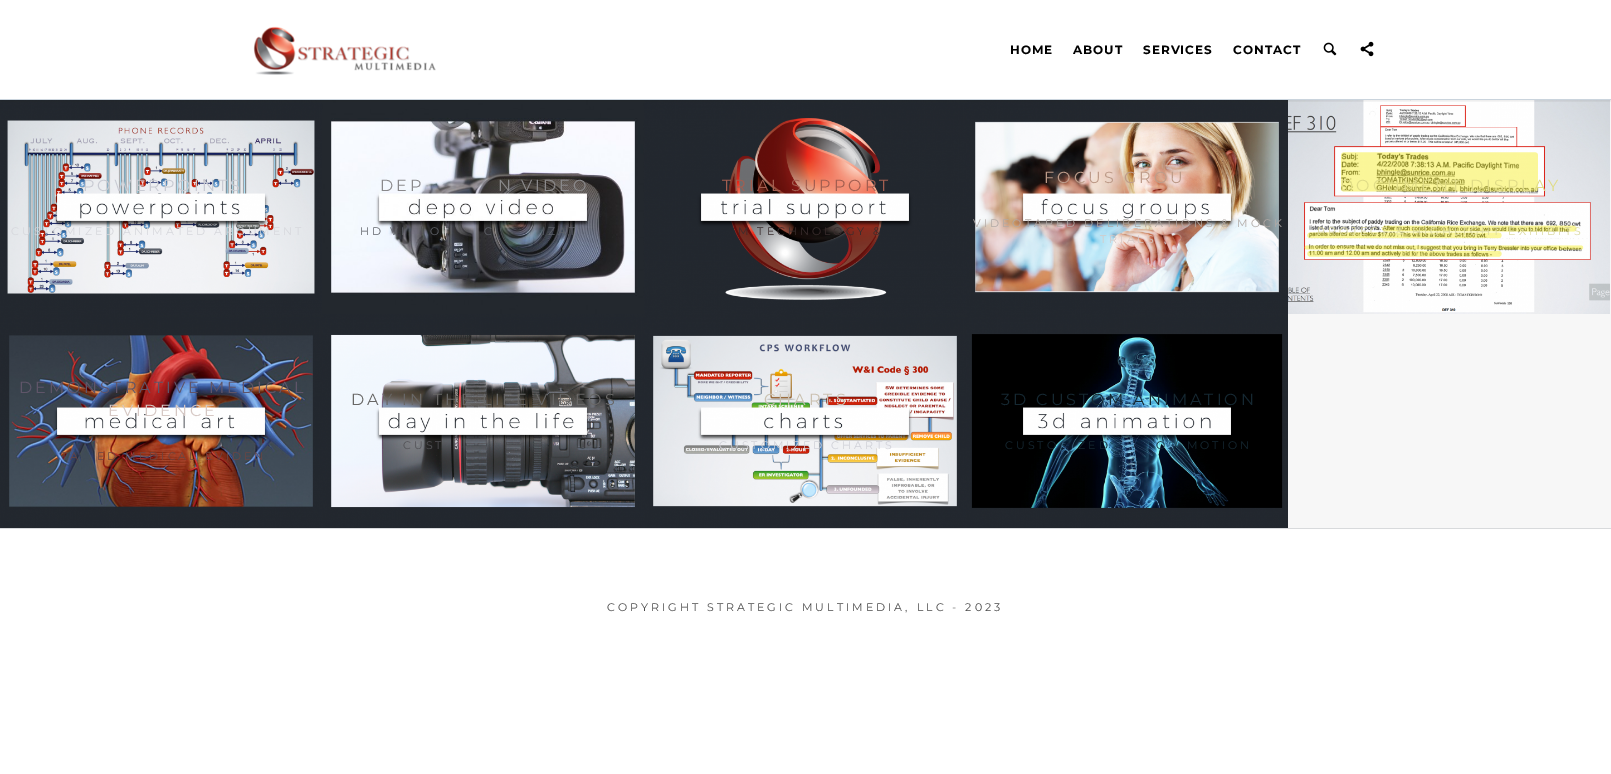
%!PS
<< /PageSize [1611 774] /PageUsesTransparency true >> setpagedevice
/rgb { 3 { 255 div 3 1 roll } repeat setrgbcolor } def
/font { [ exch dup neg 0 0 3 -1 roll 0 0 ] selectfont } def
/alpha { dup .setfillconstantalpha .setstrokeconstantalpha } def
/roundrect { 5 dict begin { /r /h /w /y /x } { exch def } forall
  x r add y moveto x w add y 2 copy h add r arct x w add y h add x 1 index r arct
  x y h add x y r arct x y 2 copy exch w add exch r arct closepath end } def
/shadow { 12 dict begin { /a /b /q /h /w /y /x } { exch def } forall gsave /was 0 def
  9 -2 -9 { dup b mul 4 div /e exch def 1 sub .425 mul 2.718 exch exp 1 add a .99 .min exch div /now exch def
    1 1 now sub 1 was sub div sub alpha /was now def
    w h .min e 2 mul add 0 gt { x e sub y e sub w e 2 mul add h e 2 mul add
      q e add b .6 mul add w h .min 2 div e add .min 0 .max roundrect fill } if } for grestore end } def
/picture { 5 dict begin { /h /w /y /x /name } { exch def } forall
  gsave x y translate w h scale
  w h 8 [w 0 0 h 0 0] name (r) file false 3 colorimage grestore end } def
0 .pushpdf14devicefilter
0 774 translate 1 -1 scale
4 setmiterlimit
255 255 255 rgb
0 0 1611 774 rectfill
247 247 247 rgb
1288 100 323 428 rectfill
(img_04.rgb) 0 100 322 214 picture
(img_05.rgb) 322 100 322 214 picture
(img_06.rgb) 644 100 322 214 picture
(img_07.rgb) 966 100 322 214 picture
(img_08.rgb) 1288 100 322 214 picture
gsave
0 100 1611 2 rectclip
0 0 0 rgb
0 1 1611 100 0 1.5 0.09 shadow
grestore
202 212 221 rgb
0 99 1611 1 rectfill
(img_01.rgb) 253 26 183 49 picture
(img_02.rgb) 1323 42 14 14 picture
(img_03.rgb) 1360 41 14 16 picture
(img_09.rgb) 0 314 322 214 picture
(img_10.rgb) 322 314 322 214 picture
(img_11.rgb) 644 314 322 214 picture
(img_12.rgb) 966 314 322 214 picture
216 218 220 rgb
0 528 1611 1 rectfill
/Montserrat-Bold 12 font
0 0 0 rgb
1010 54 moveto 1 0 (HOME) ashow
1073 54 moveto 1 0 (ABOUT) ashow
1143 54 moveto 1 0 (SERVICES) ashow
1233 54 moveto 1 0 (CONTACT) ashow
/Montserrat-Regular 16 font
201 203 211 rgb
83 191 moveto 3 0 (POWERPOINTS) ashow
/Montserrat-Regular 11 font
214 215 220 rgb
11 235 moveto 3 0 (CUSTOMIZED ANIMATED ARGUMENT) ashow
/Montserrat-Regular 16 font
138 137 139 rgb
380 191 moveto 3 0 (DEP) ashow
498 191 moveto 3 0 (N VIDEO) ashow
/Montserrat-Regular 11 font
94 97 104 rgb
360 235 moveto 3 0 (HD VI) ashow
430 235 moveto 3 0 (O) ashow
484 235 moveto 3 0 (C) ashow
542 235 moveto 3 0 (IZAT) ashow
/Montserrat-Regular 16 font
163 94 80 rgb
722 191 moveto 3 0 (TRIAL SUPPORT) ashow
/Montserrat-Regular 11 font
57 44 45 rgb
738 235 moveto 3 0 (M TECHNOLOGY &) ashow
/Montserrat-Regular 16 font
190 156 138 rgb
1044 183 moveto 3 0 (FOCUS GROU) ashow
/Montserrat-Regular 11 font
177 169 165 rgb
973 227 moveto 3 0 (VIDEOTAPED DELIBERATIONS & MOCK) ashow
214 200 196 rgb
1100 243 moveto 3 0 (TRIALS) ashow
/Montserrat-Regular 16 font
224 220 135 rgb
1340 191 moveto 3 0 (DOCUMENT DISPLAY) ashow
/Montserrat-Regular 11 font
218 216 157 rgb
1317 235 moveto 3 0 (PROJECT & HIGHLIGHT EXHIBITS) ashow
/Montserrat-Regular 16 font
95 85 105 rgb
19 393 moveto 3 0 (DEMONSTRATIVE MEDICAL) ashow
214 200 196 rgb
108 416 moveto 3 0 (EVIDENCE) ashow
/Montserrat-Regular 11 font
106 69 67 rgb
61 460 moveto 3 0 (TA) ashow
97 460 moveto 3 0 (ED MEDICAL EVIDEN) ashow
/Montserrat-Regular 16 font
104 103 102 rgb
351 405 moveto 3 0 (DAY IN THE LIFE VIDEOS) ashow
/Montserrat-Regular 11 font
83 82 87 rgb
403 449 moveto 3 0 (CUST) ashow
/Montserrat-Regular 16 font
203 193 177 rgb
764 405 moveto 3 0 (CHARTS) ashow
/Montserrat-Regular 11 font
207 208 215 rgb
719 449 moveto 3 0 (CUSTOMIZED CHARTS) ashow
/Montserrat-Regular 16 font
21 40 50 rgb
1001 405 moveto 3 0 (3D CUSTOM ANIMATION) ashow
/Montserrat-Regular 11 font
1005 449 moveto 3 0 (CUSTO) ashow
1078 449 moveto 3 0 (ZED) ashow
1156 449 moveto 3 0 (O / MOTION) ashow
71 71 71 rgb
607 611 moveto 3 0 (COPYRIGHT STRATEGIC MULTIMEDIA, LLC - 2023) ashow
.poppdf14devicefilter showpage
